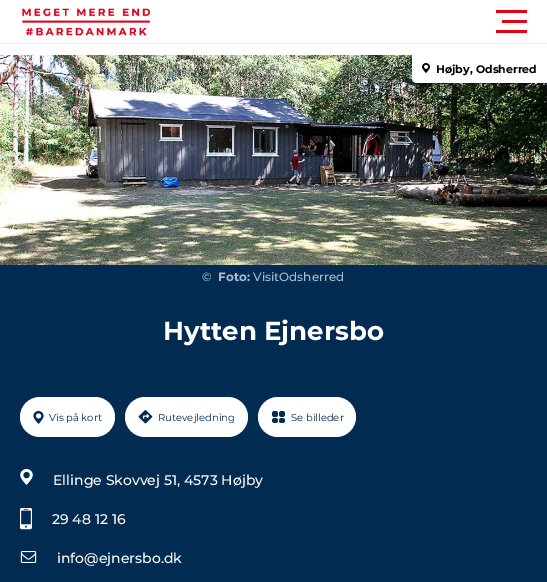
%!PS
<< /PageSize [547 582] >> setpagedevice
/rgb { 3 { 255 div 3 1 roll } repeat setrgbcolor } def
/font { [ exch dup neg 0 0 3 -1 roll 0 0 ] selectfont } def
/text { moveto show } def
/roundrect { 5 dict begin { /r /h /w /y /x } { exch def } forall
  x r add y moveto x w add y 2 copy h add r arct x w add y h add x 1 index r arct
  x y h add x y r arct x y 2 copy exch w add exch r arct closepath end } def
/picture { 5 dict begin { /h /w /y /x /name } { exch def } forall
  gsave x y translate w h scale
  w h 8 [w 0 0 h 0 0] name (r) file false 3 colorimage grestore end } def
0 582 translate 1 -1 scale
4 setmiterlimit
255 255 255 rgb
0 0 547 582 rectfill
240 241 243 rgb
0 43 547 1 rectfill
(img_01.rgb) 22 8 128 28 picture
231 0 19 rgb
496 10 31 3 rectfill
502 20 25 3 rectfill
496 30 31 3 rectfill
(img_02.rgb) 0 55 547 210 picture
255 255 255 rgb
412 55 moveto 135 0 rlineto 0 28 rlineto -130 0 rlineto -3 0 -5 -2 -5 -5 rcurveto closepath fill
(img_03.rgb) 422 63 8 10 picture
2 43 82 rgb
0 265 547 317 rectfill
255 255 255 rgb
20 397 95 40 20 roundrect fill
(img_04.rgb) 33 411 11 13 picture
125 397 123 40 20 roundrect fill
(img_05.rgb) 138 410 15 14 picture
258 397 98 40 20 roundrect fill
(img_06.rgb) 272 411 13 12 picture
(img_07.rgb) 20 469 13 16 picture
(img_08.rgb) 20 508 12 22 picture
(img_09.rgb) 20 551 17 12 picture
/Montserrat-Bold 11 font
0 0 0 rgb
(Højby, Odsherred) 436 73 text
/Montserrat-Medium 12 font
170 188 205 rgb
(©) 202 281 text
/Montserrat-Bold 12 font
(Foto:) 218 281 text
/Montserrat-Medium 12 font
(VisitOdsherred) 253 281 text
/Montserrat-Bold 26 font
255 255 255 rgb
(Hytten Ejnersbo) 163 340 text
/Montserrat-Regular 10 font
2 43 82 rgb
(Vis på kort) 49 421 text
(Rutevejledning) 158 421 text
(Se billeder) 291 421 text
/Montserrat-Medium 14 font
255 255 255 rgb
(Ellinge Skovvej 51, 4573 Højby) 53 485 text
(29 48 12 16) 52 524 text
(info@ejnersbo.dk) 57 563 text
showpage
